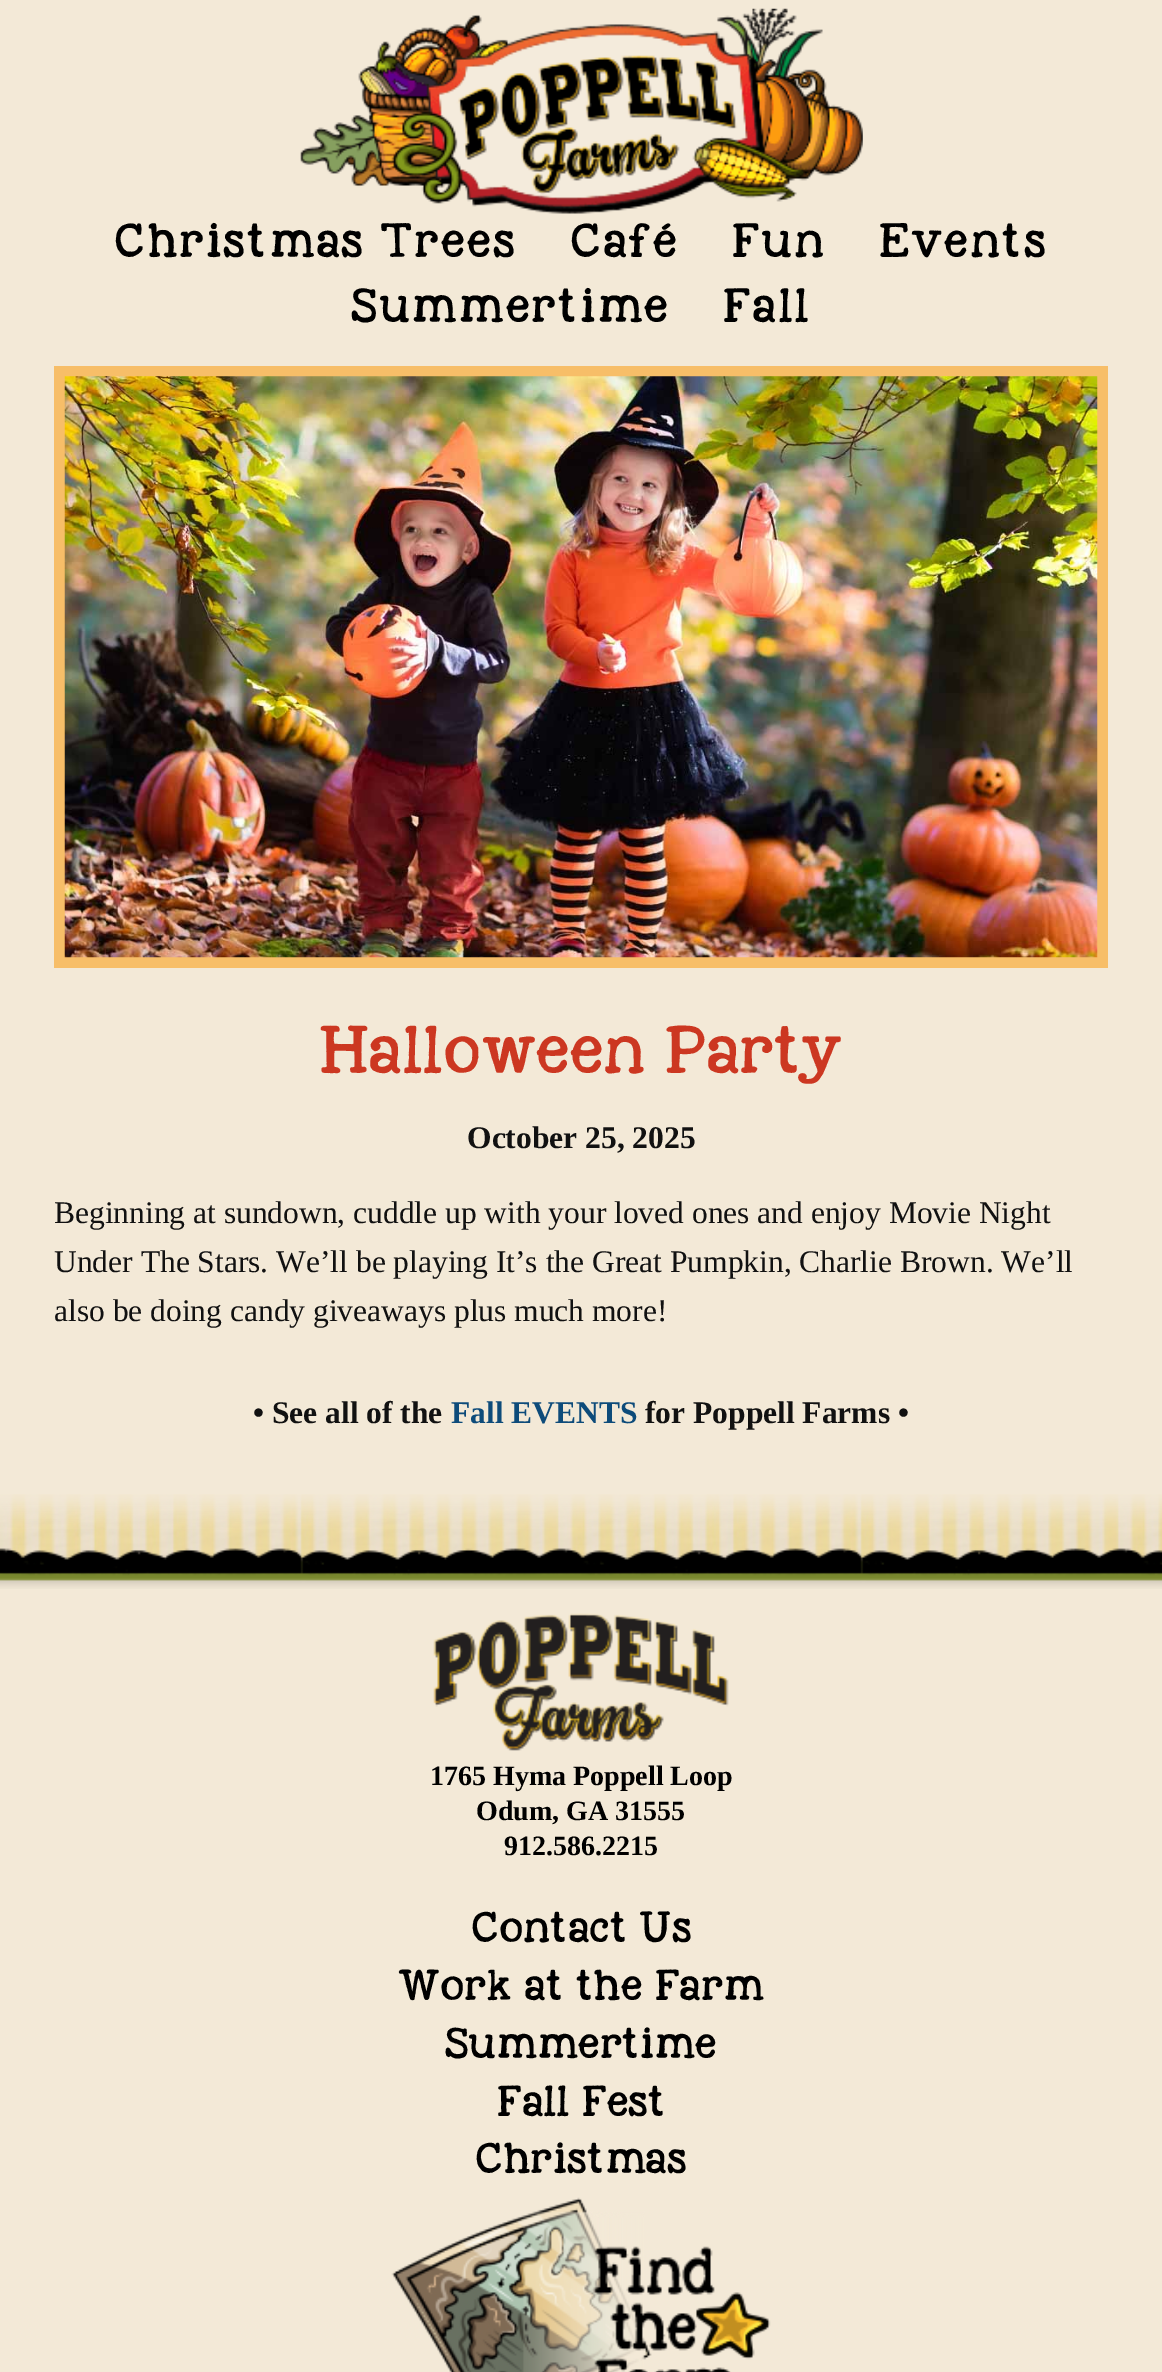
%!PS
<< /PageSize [1162 2372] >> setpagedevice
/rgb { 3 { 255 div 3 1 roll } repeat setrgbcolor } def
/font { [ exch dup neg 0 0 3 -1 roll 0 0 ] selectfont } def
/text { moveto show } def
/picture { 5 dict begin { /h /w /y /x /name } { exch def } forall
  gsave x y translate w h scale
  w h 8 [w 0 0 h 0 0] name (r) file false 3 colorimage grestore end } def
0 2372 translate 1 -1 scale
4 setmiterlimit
243 233 215 rgb
0 0 1162 2372 rectfill
(img_01.rgb) 300 8 563 206 picture
247 190 104 rgb
54 366 1054 602 rectfill
(img_02.rgb) 64 376 1034 582 picture
(img_03.rgb) 0 1494 1162 95 picture
(img_04.rgb) 433 1613 296 138 picture
(img_05.rgb) 391 2197 380 175 picture
/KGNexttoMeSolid-Regular 35 font
0 0 0 rgb
114 257 moveto 1.75 0 (Christmas Trees) ashow
570 257 moveto 1.75 0 (Café) ashow
732 257 moveto 1.75 0 (Fun) ashow
879 257 moveto 1.75 0 (Events) ashow
351 322 moveto 1.75 0 (Summertime) ashow
723 322 moveto 1.75 0 (Fall) ashow
/KGNexttoMeSolid-Regular 49 font
204 55 33 rgb
(Halloween Party) 320 1073 text
/LiberationSerif-Bold 31.5 font
17 17 17 rgb
(October 25, 2025) 467 1148 text
/LiberationSerif-Regular 31.5 font
(Beginning at sundown, cuddle up with your loved ones and enjoy Movie Night) 54 1223 text
(Under The Stars. We’ll be playing It’s the Great Pumpkin, Charlie Brown. We’ll) 54 1272 text
(also be doing candy giveaways plus much more!) 54 1321 text
/LiberationSerif-Bold 31.5 font
(• See all of the) 253 1423 text
13 75 122 rgb
(Fall EVENTS) 451 1423 text
17 17 17 rgb
(for Poppell Farms •) 645 1423 text
/LiberationSerif-Bold 28 font
0 0 0 rgb
(1765 Hyma Poppell Loop) 430 1785 text
(Odum, GA 31555) 476 1820 text
(912.586.2215) 504 1855 text
/KGNexttoMeSolid-Regular 31.5 font
(Contact Us) 471 1942 text
(Work at the Farm) 398 2000 text
(Summertime) 445 2058 text
(Fall Fest) 497 2116 text
(Christmas) 475 2173 text
showpage
